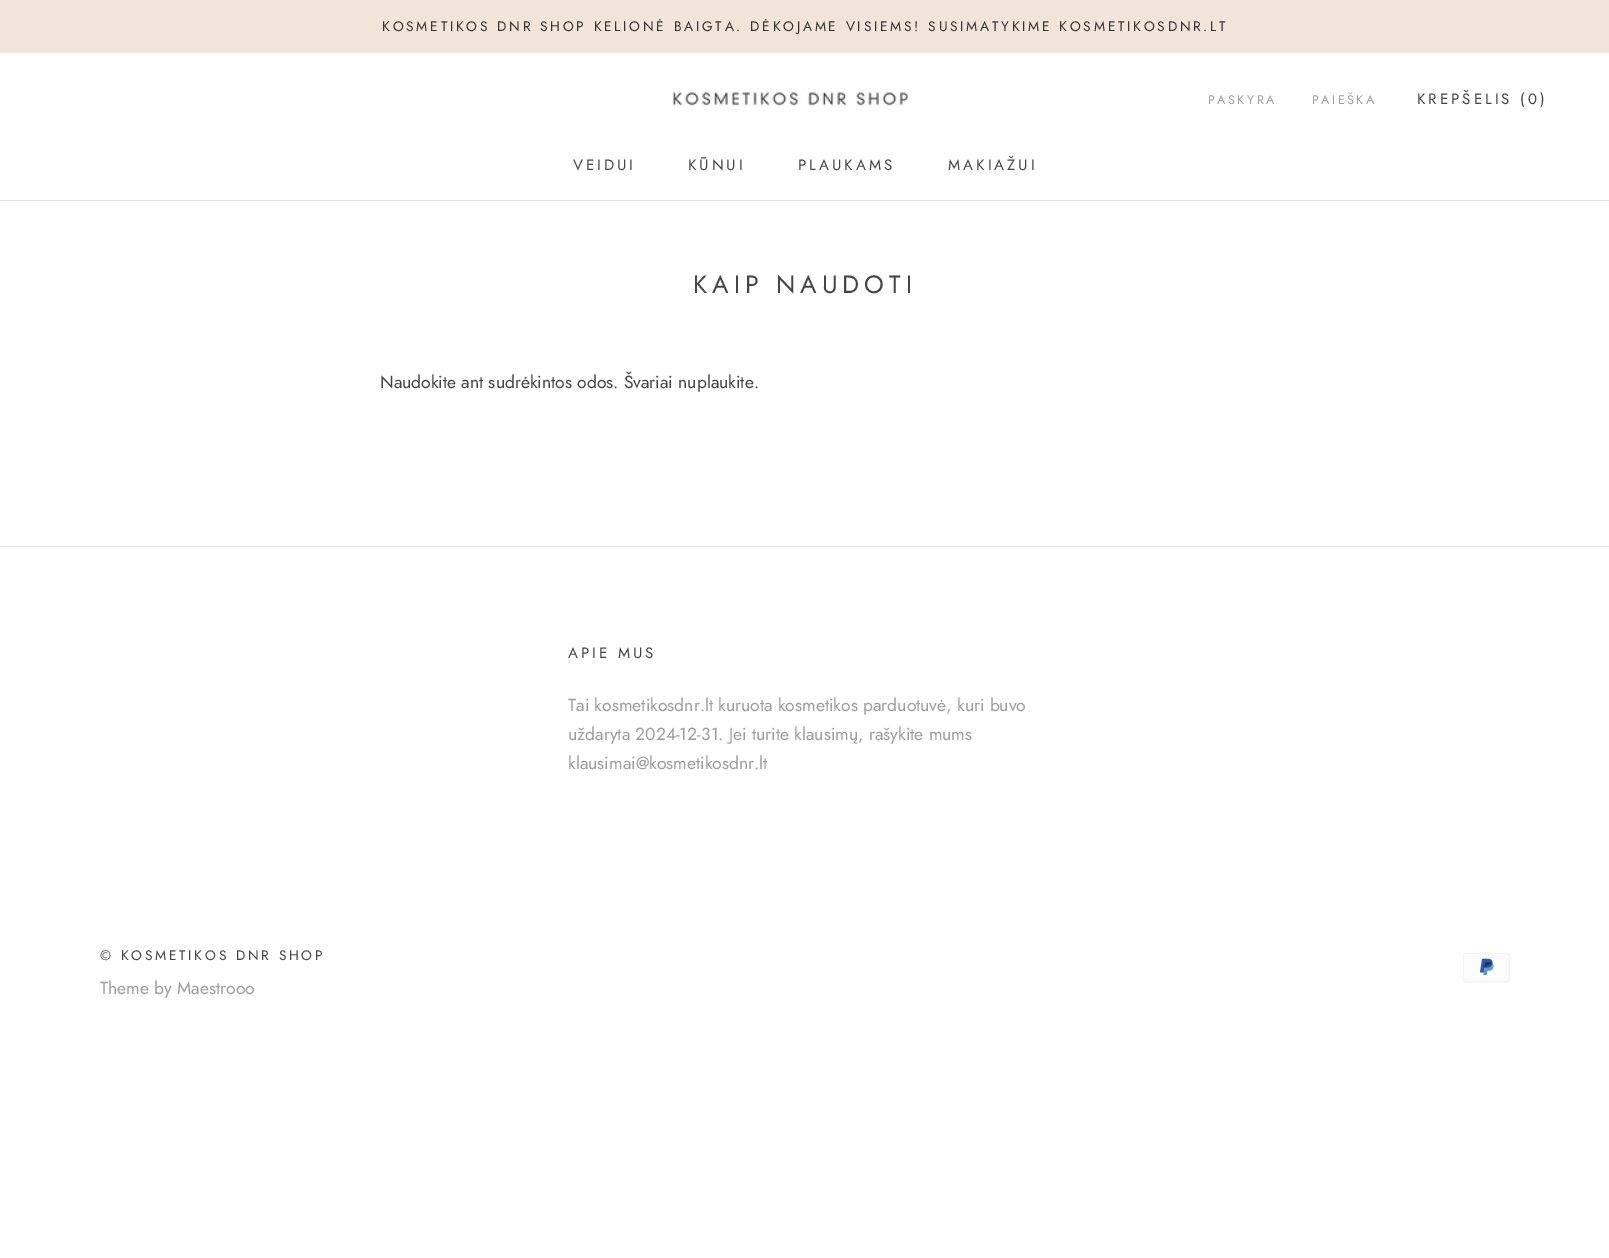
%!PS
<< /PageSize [1609 1258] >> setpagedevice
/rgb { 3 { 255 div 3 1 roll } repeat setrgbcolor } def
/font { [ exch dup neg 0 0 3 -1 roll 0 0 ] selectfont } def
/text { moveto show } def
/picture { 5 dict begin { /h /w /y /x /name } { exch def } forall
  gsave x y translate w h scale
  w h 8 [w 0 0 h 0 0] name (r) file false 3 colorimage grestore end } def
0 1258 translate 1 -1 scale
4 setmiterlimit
255 255 255 rgb
0 0 1609 1258 rectfill
241 228 216 rgb
0 0 1609 53 rectfill
227 227 227 rgb
0 200 1609 1 rectfill
(img_01.rgb) 672 90 237 16 picture
0 546 1609 1 rectfill
(img_02.rgb) 1463 953 47 30 picture
/Jost-Regular 13.75 font
52 52 52 rgb
382 31 moveto 2.75 0 (KOSMETIKOS DNR SHOP KELIONĖ BAIGTA. DĖKOJAME VISIEMS! SUSIMATYKIME KOSMETIKOSDNR.LT) ashow
/Jost-Regular 12.5 font
157 157 157 rgb
1208 104 moveto 2.5 0 (PASKYRA) ashow
1312 104 moveto 2.5 0 (PAIEŠKA) ashow
/Jost-Regular 15 font
69 69 69 rgb
1417 104 moveto 3 0 (KREPŠELIS \(0\)) ashow
573 170 moveto 3 0 (VEIDUI) ashow
688 170 moveto 3 0 (KŪNUI) ashow
798 170 moveto 3 0 (PLAUKAMS) ashow
948 170 moveto 3 0 (MAKIAŽUI) ashow
/Jost-Regular 25 font
693 293 moveto 5 0 (KAIP NAUDOTI) ashow
/Jost-Regular 17.5 font
(Naudokite ant sudrėkintos odos. Švariai nuplaukite.) 380 388 text
/Jost-Regular 15 font
568 658 moveto 3 0 (APIE MUS) ashow
/Jost-Regular 17.5 font
157 157 157 rgb
(Tai kosmetikosdnr.lt kuruota kosmetikos parduotuvė, kuri buvo) 568 711 text
(uždaryta 2024-12-31. Jei turite klausimų, rašykite mums) 568 740 text
(klausimai@kosmetikosdnr.lt) 568 769 text
/Jost-Regular 13.75 font
69 69 69 rgb
100 960 moveto 2.75 0 (© KOSMETIKOS DNR SHOP) ashow
/Jost-Regular 17.5 font
157 157 157 rgb
(Theme by Maestrooo) 100 994 text
showpage
